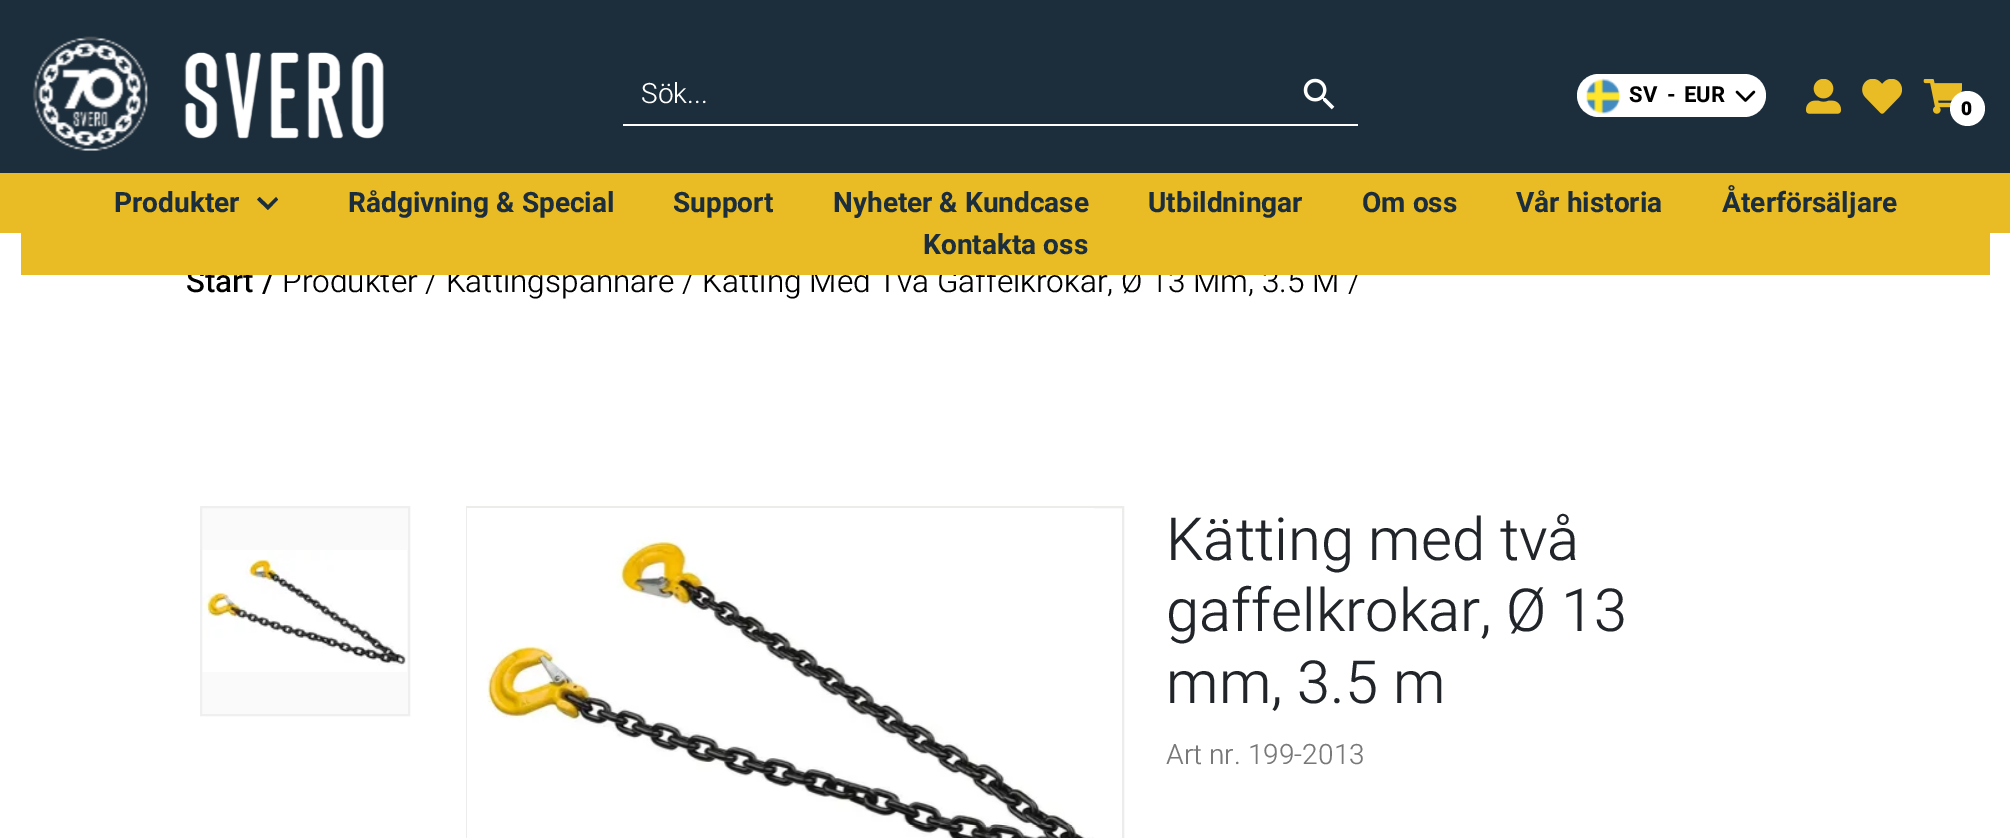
%!PS
<< /PageSize [2010 838] >> setpagedevice
/rgb { 3 { 255 div 3 1 roll } repeat setrgbcolor } def
/font { [ exch dup neg 0 0 3 -1 roll 0 0 ] selectfont } def
/text { moveto show } def
/circle { newpath 0 360 arc closepath } def
/roundrect { 5 dict begin { /r /h /w /y /x } { exch def } forall
  x r add y moveto x w add y 2 copy h add r arct x w add y h add x 1 index r arct
  x y h add x y r arct x y 2 copy exch w add exch r arct closepath end } def
/picture { 5 dict begin { /h /w /y /x /name } { exch def } forall
  gsave x y translate w h scale
  w h 8 [w 0 0 h 0 0] name (r) file false 3 colorimage grestore end } def
0 838 translate 1 -1 scale
4 setmiterlimit
255 255 255 rgb
0 0 2010 838 rectfill
28 45 59 rgb
0 0 2010 173 rectfill
(img_01.rgb) 32 36 116 115 picture
(img_02.rgb) 184 52 200 87 picture
255 255 255 rgb
623 124 735 2 rectfill
(img_03.rgb) 1303 78 32 32 picture
1577 74 189 43 21.5 roundrect fill
(img_04.rgb) 1585 78 36 36 picture
(img_05.rgb) 1735 90 21 12 picture
(img_06.rgb) 1806 79 35 35 picture
(img_07.rgb) 1862 79 40 35 picture
(img_08.rgb) 1923 79 39 35 picture
1967.5 108.5 17.5 circle fill
233 188 38 rgb
0 173 2010 60 rectfill
28 45 59 rgb
259.5 197 moveto 8.5 8 rlineto 8 -8 rlineto 2 2.5 rlineto -10 10.5 rlineto -11 -10.5 rlineto closepath fill
250 250 250 rgb
202 508 206 206 rectfill
(img_09.rgb) 202 550 205 122 picture
239 239 239 rgb
2 setlinewidth
201 507 208 208 rectstroke
236 236 235 rgb
467 507 656 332 rectstroke
(img_10.rgb) 467 508 627 330 picture
/Heebo-Light 28 font
255 255 255 rgb
(Sök...) 641 103 text
/Heebo-Bold 22 font
0 0 0 rgb
(SV) 1629 102 text
(-) 1667 102 text
(EUR) 1684 102 text
/Heebo-Black 19 font
(0) 1961 115 text
/Heebo-Bold 28 font
28 45 59 rgb
(Produkter) 114 212 text
(Rådgivning & Special) 348 212 text
(Support) 673 212 text
(Nyheter & Kundcase) 833 212 text
(Utbildningar) 1148 212 text
(Om oss) 1362 212 text
(Vår historia) 1516 212 text
(Återförsäljare) 1722 212 text
/Heebo-Medium 31.5 font
0 0 0 rgb
(Start /) 186 292 text
/Heebo-Light 31.5 font
(Produkter / Kättingspännare / Kätting Med Två Gaffelkrokar, Ø 13 Mm, 3.5 M /) 282 292 text
233 188 38 rgb
21 233 1969 42 rectfill
/Heebo-Bold 28 font
28 45 59 rgb
(Kontakta oss) 923 254 text
/Heebo-Light 59.5 font
33 37 41 rgb
(Kätting med två) 1166 560 text
(gaffelkrokar, Ø 13) 1166 631 text
(mm, 3.5 m) 1166 703 text
/Heebo-Light 28 font
120 120 120 rgb
(Art nr. 199-2013) 1166 764 text
showpage
